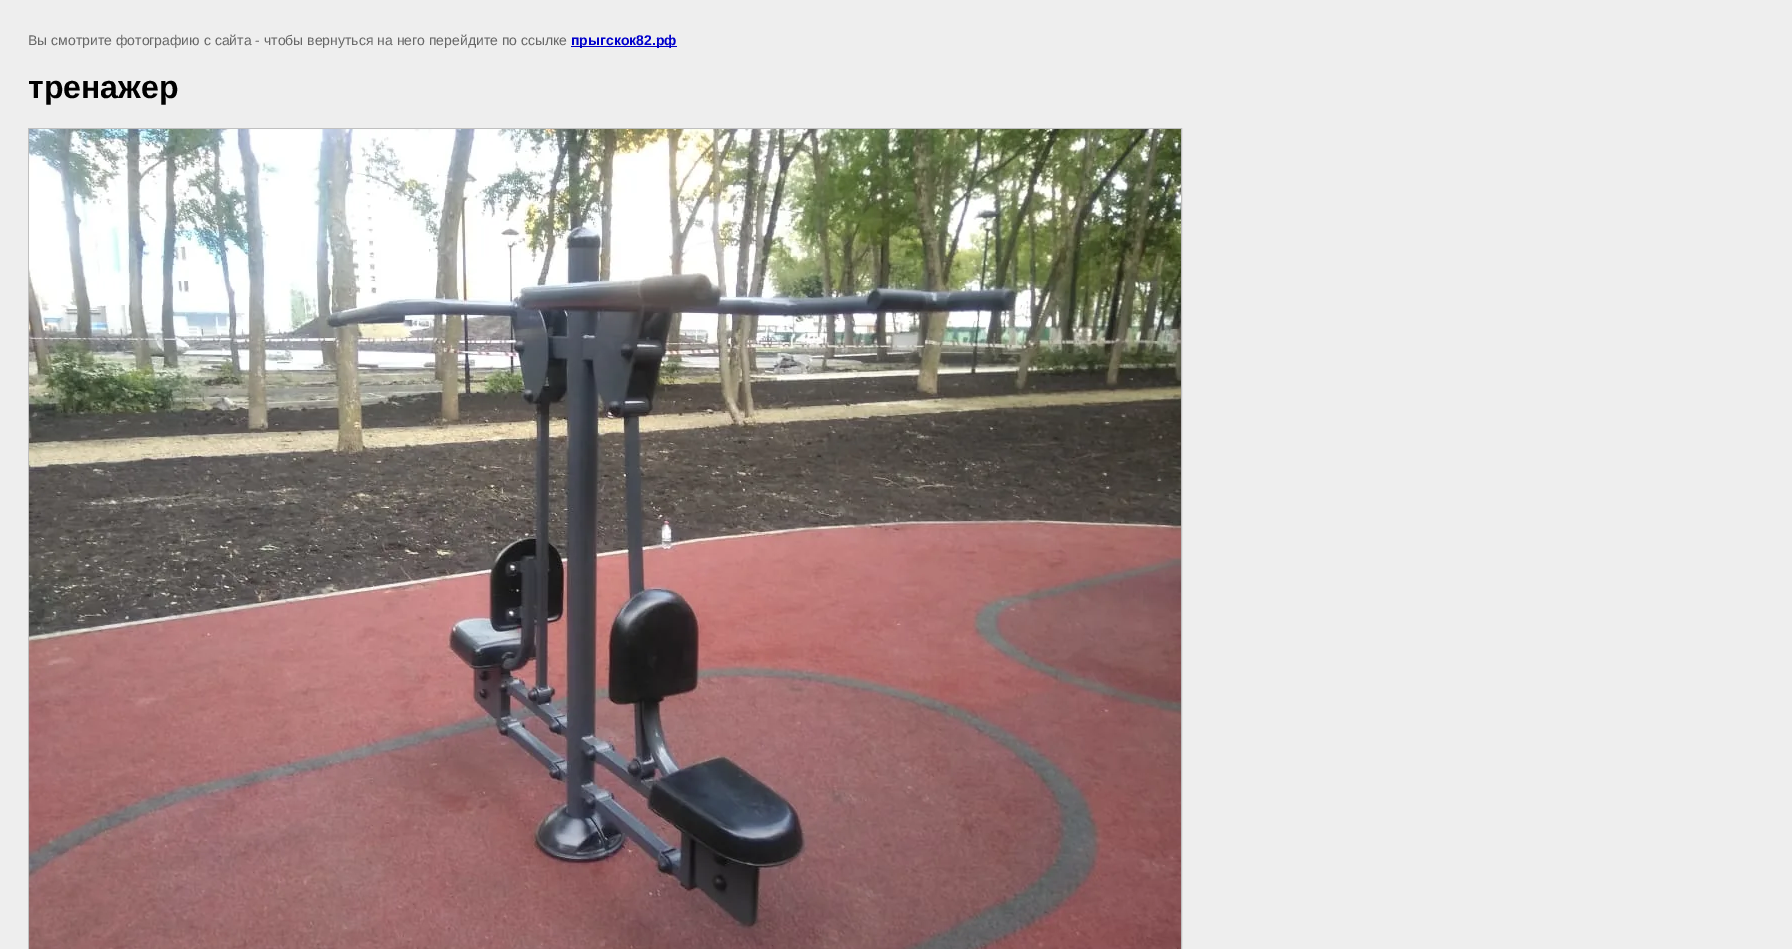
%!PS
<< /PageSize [1792 949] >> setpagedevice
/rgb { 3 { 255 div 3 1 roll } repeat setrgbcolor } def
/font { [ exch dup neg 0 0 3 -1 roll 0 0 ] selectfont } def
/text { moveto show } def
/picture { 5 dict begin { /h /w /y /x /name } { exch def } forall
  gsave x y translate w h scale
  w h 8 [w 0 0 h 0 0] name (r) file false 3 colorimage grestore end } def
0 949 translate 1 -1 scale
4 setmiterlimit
238 238 238 rgb
0 0 1792 949 rectfill
0 0 204 rgb
571 46 106 1 rectfill
192 192 192 rgb
28.5 128.5 1153 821 rectstroke
(img_01.rgb) 29 129 1152 820 picture
/LiberationSans-Regular 14 font
102 102 102 rgb
(Вы смотрите фотографию с сайта - чтобы вернуться на него перейдите по ссылке) 28 45 text
/LiberationSans-Bold 14 font
0 0 204 rgb
(прыгскок82.рф) 571 45 text
/LiberationSans-Bold 32 font
0 0 0 rgb
(тренажер) 28 98 text
showpage
